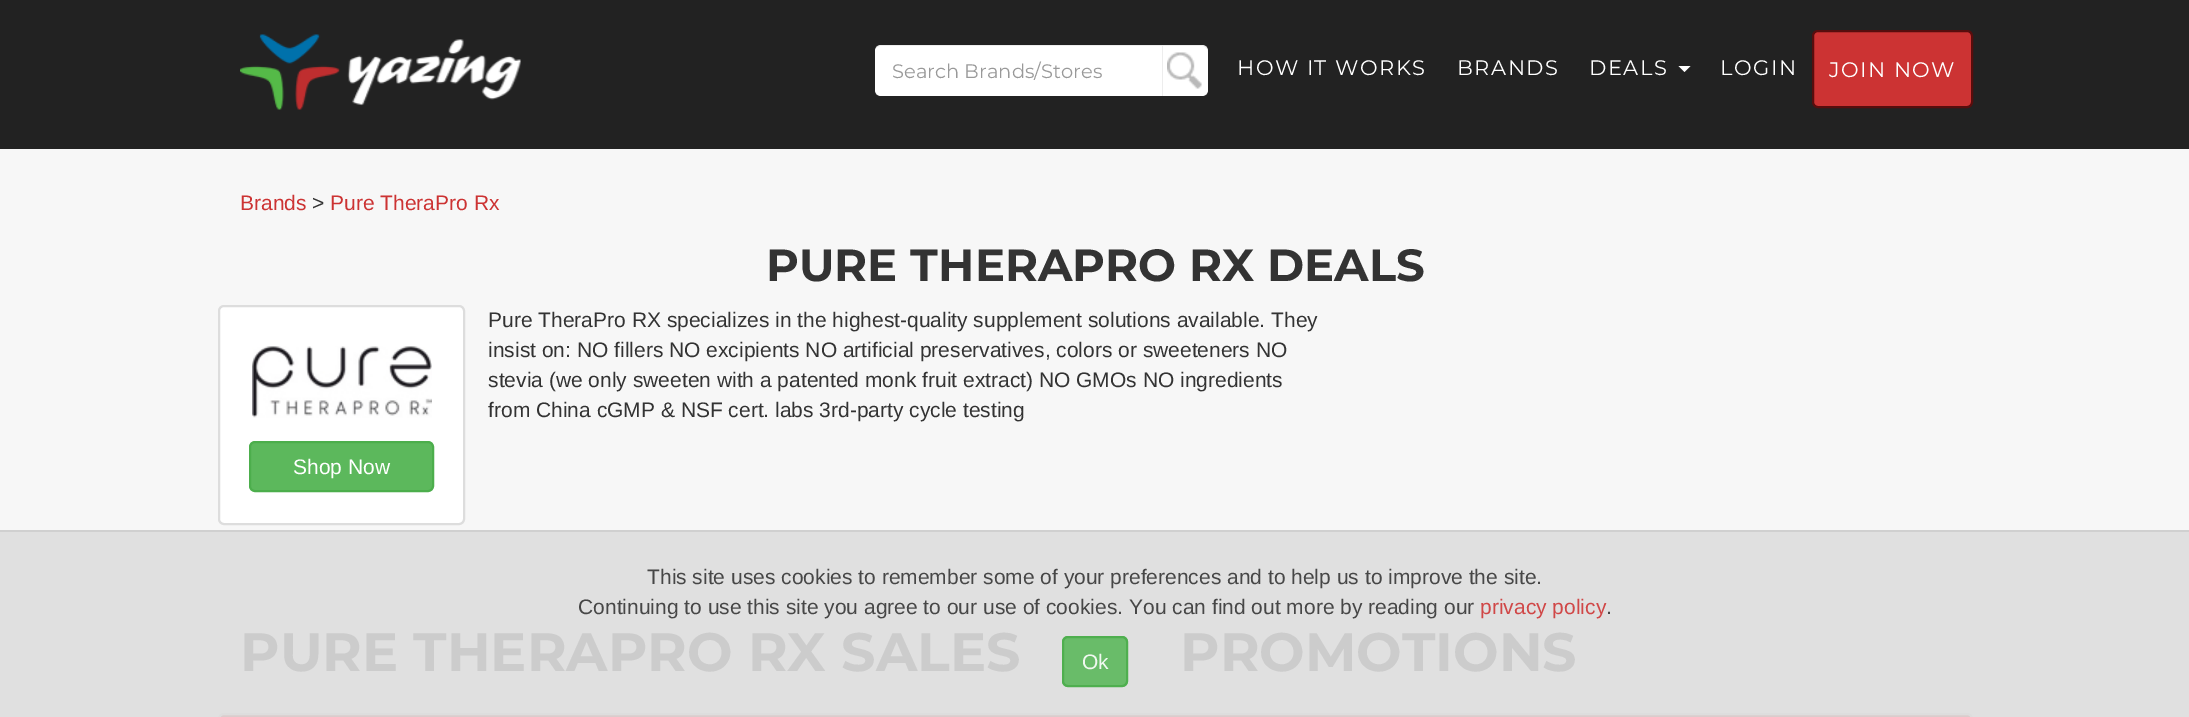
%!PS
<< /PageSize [2189 717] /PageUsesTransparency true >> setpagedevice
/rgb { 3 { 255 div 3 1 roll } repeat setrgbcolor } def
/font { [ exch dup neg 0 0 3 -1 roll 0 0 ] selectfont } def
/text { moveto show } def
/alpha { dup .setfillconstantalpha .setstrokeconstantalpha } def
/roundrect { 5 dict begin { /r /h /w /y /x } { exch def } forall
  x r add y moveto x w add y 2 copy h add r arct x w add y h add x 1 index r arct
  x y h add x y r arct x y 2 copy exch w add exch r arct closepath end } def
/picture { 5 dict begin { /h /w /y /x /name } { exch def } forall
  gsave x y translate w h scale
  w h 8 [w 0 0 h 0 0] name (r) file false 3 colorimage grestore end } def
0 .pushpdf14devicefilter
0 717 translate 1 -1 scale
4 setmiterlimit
247 247 247 rgb
0 0 2189 717 rectfill
224 224 224 rgb
0 532 2189 185 rectfill
34 34 34 rgb
0 0 2189 149 rectfill
(img_01.rgb) 240 34 281 76 picture
255 255 255 rgb
881 45 moveto 282 0 rlineto 0 51 rlineto -282 0 rlineto -3.5 0 -6 -2.5 -6 -6 rcurveto 0 -39 rlineto 0 -3.5 2.5 -6 6 -6 rcurveto closepath fill
0.07 alpha
0 0 0 rgb
880 46 moveto 282 0 rlineto 0 50 rlineto 1 0 rlineto 0 -51 rlineto -282 0 rlineto -2 0 -4 1 -5 3 rcurveto 1 -1 3 -2 4 -2 rcurveto closepath fill
1 alpha
255 255 255 rgb
1163 45 moveto 39 0 rlineto 3.5 0 6 2.5 6 6 rcurveto 0 39 rlineto 0 3.5 -2.5 6 -6 6 rcurveto -39 0 rlineto closepath fill
(img_02.rgb) 1167 52 35 37 picture
0.07 alpha
0 0 0 rgb
1163 45 moveto 0 1 rlineto 39 0 rlineto 3 0 6 3 6 6 rcurveto 0 -4 -2 -7 -6 -7 rcurveto closepath fill
1 alpha
255 255 255 rgb
1678.5 66 moveto 12 0 rlineto -6 6 rlineto closepath fill
204 51 51 rgb
1813 31 159 76 5 roundrect gsave fill grestore
88 13 13 rgb
2 setlinewidth
stroke
255 255 255 rgb
219 306 245 218 5 roundrect gsave fill grestore
221 221 221 rgb
stroke
(img_03.rgb) 252 346 180 72 picture
92 184 92 rgb
250 442 183 49 5 roundrect gsave fill grestore
76 174 76 rgb
stroke
218 204 204 rgb
219 714 1753 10 5 roundrect gsave fill grestore
221 221 221 rgb
stroke
208 208 208 rgb
0 530 2189 2 rectfill
0.9 alpha
92 184 92 rgb
1062 636 66 51 6 roundrect fill
76 174 76 rgb
1063 637 64 49 5 roundrect stroke
/Montserrat-Regular 19.5 font
1 alpha
153 153 153 rgb
(Search Brands/Stores) 892 78 text
/Montserrat-Regular 21 font
255 255 255 rgb
1237 75 moveto 1.5 0 (HOW IT WORKS) ashow
1457 75 moveto 1.5 0 (BRANDS) ashow
1589 75 moveto 1.5 0 (DEALS) ashow
1720 75 moveto 1.5 0 (LOGIN) ashow
1829 77 moveto 1.5 0 (JOIN NOW) ashow
/LiberationSans-Regular 21 font
204 51 51 rgb
(Brands) 240 210 text
51 51 51 rgb
(>) 312 210 text
204 51 51 rgb
(Pure TheraPro Rx) 330 210 text
/Montserrat-Bold 45 font
51 51 51 rgb
(PURE THERAPRO RX DEALS) 766 281 text
/LiberationSans-Regular 21 font
(Pure TheraPro RX specializes in the highest-quality supplement solutions available. They) 488 327 text
(insist on: NO fillers NO excipients NO artificial preservatives, colors or sweeteners NO) 488 357 text
(stevia \(we only sweeten with a patented monk fruit extract\) NO GMOs NO ingredients) 488 387 text
(from China cGMP & NSF cert. labs 3rd-party cycle testing) 488 417 text
255 255 255 rgb
(Shop Now) 293 474 text
/Montserrat-Bold 54 font
204 204 204 rgb
(PURE THERAPRO RX SALES) 240 671 text
(PROMOTIONS) 1180 671 text
/LiberationSans-Regular 21 font
71 71 71 rgb
(This site uses cookies to remember some of your preferences and to help us to improve the site.) 647 584 text
(Continuing to use this site you agree to our use of cookies. You can find out more by reading our) 578 614 text
208 71 71 rgb
(privacy policy) 1480 614 text
71 71 71 rgb
(.) 1606 614 text
240 248 240 rgb
(Ok) 1082 669 text
.poppdf14devicefilter showpage
